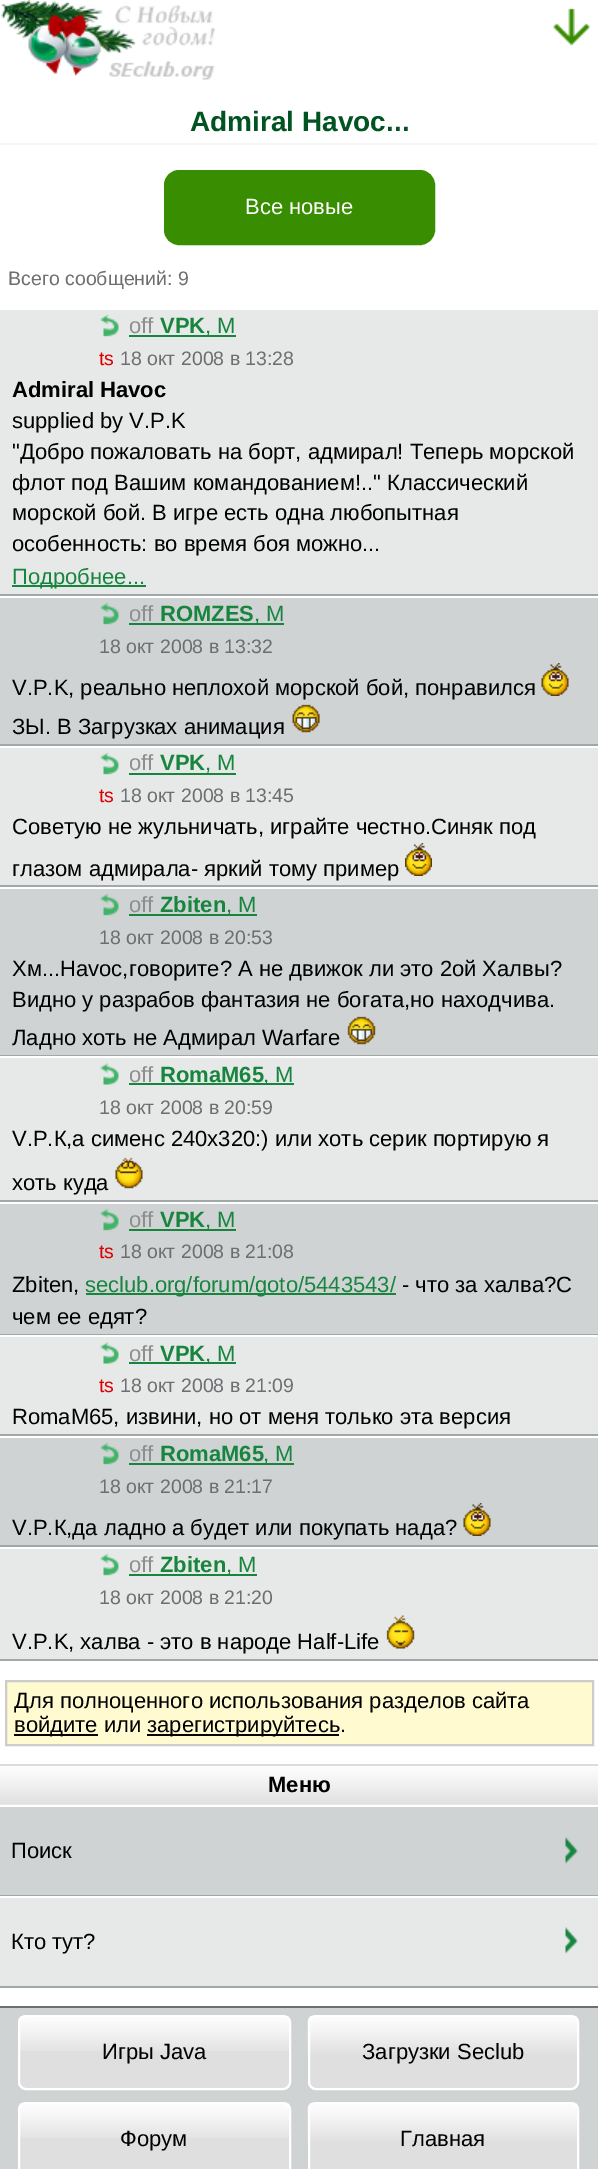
%!PS
<< /PageSize [598 2169] >> setpagedevice
/rgb { 3 { 255 div 3 1 roll } repeat setrgbcolor } def
/font { [ exch dup neg 0 0 3 -1 roll 0 0 ] selectfont } def
/text { moveto show } def
/roundrect { 5 dict begin { /r /h /w /y /x } { exch def } forall
  x r add y moveto x w add y 2 copy h add r arct x w add y h add x 1 index r arct
  x y h add x y r arct x y 2 copy exch w add exch r arct closepath end } def
/picture { 5 dict begin { /h /w /y /x /name } { exch def } forall
  gsave x y translate w h scale
  w h 8 [w 0 0 h 0 0] name (r) file false 3 colorimage grestore end } def
0 2169 translate 1 -1 scale
4 setmiterlimit
255 255 255 rgb
0 0 598 2169 rectfill
(img_01.rgb) 1 0 214 80 picture
(img_02.rgb) 553 8 37 38 picture
246 246 246 rgb
0 143 598 2 rectfill
56 141 0 rgb
165 171 269 73 14 roundrect gsave fill grestore
2 setlinewidth
stroke
231 233 233 rgb
0 310 598 284 rectfill
162 167 170 rgb
0 594 598 2 rectfill
(img_03.rgb) 100 314 19 23 picture
24 133 63 rgb
129 335 107 2 rectfill
12 585 134 2 rectfill
208 211 212 rgb
0 598 598 146 rectfill
162 167 170 rgb
0 744 598 2 rectfill
(img_04.rgb) 100 602 19 23 picture
24 133 63 rgb
129 623 155 2 rectfill
(img_05.rgb) 541 663 28 33 picture
(img_06.rgb) 292 704 28 29 picture
231 233 233 rgb
0 748 598 137 rectfill
162 167 170 rgb
0 885 598 2 rectfill
(img_03.rgb) 100 752 19 23 picture
24 133 63 rgb
129 773 107 2 rectfill
(img_07.rgb) 405 843 27 33 picture
208 211 212 rgb
0 889 598 166 rectfill
162 167 170 rgb
0 1055 598 1 rectfill
(img_04.rgb) 100 893 19 23 picture
24 133 63 rgb
129 914 128 2 rectfill
(img_08.rgb) 347 1016 29 29 picture
231 233 233 rgb
0 1058 598 142 rectfill
162 167 170 rgb
0 1200 598 2 rectfill
(img_09.rgb) 100 1063 19 22 picture
24 133 63 rgb
129 1083 165 2 rectfill
(img_10.rgb) 115 1157 28 32 picture
208 211 212 rgb
0 1204 598 130 rectfill
162 167 170 rgb
0 1334 598 1 rectfill
(img_04.rgb) 100 1208 19 23 picture
24 133 63 rgb
129 1229 107 2 rectfill
86 1293 310 2 rectfill
231 233 233 rgb
0 1337 598 97 rectfill
162 167 170 rgb
0 1434 598 2 rectfill
(img_09.rgb) 100 1342 19 22 picture
24 133 63 rgb
129 1362 107 2 rectfill
208 211 212 rgb
0 1438 598 107 rectfill
162 167 170 rgb
0 1545 598 2 rectfill
(img_04.rgb) 100 1442 19 23 picture
24 133 63 rgb
129 1463 165 2 rectfill
(img_11.rgb) 463 1503 28 33 picture
231 233 233 rgb
0 1549 598 110 rectfill
162 167 170 rgb
0 1659 598 2 rectfill
(img_03.rgb) 100 1553 19 23 picture
24 133 63 rgb
129 1574 128 2 rectfill
(img_12.rgb) 386 1615 29 34 picture
255 250 207 rgb
6 1681 moveto 587 0 rlineto 0 64 rlineto -587 0 rlineto closepath gsave fill grestore
204 204 204 rgb
stroke
3 3 3 rgb
14 1734 84 2 rectfill
147 1734 192 2 rectfill
230 230 230 rgb
0 1804 598 1 rectfill
(img_13.rgb) 0 1766 598 38 picture
219 219 219 rgb
0 1764 598 2 rectfill
208 211 212 rgb
0 1807 598 88 rectfill
162 167 170 rgb
0 1895 598 1 rectfill
(img_14.rgb) 565 1837 13 27 picture
231 233 233 rgb
0 1898 598 88 rectfill
162 167 170 rgb
0 1986 598 2 rectfill
(img_15.rgb) 565 1927 13 27 picture
208 211 212 rgb
0 2008 598 161 rectfill
108 110 112 rgb
0 2006 598 2 rectfill
223 223 223 rgb
18 2015 273 75 8 roundrect fill
(img_16.rgb) 18 2016 273 35 picture
255 255 255 rgb
19 2016 271 73 7 roundrect stroke
223 223 223 rgb
308 2015 271 75 8 roundrect fill
(img_17.rgb) 307 2016 272 38 picture
255 255 255 rgb
309 2016 269 73 7 roundrect stroke
223 223 223 rgb
18 2102 273 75 8 roundrect fill
(img_16.rgb) 18 2103 273 35 picture
255 255 255 rgb
19 2103 271 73 7 roundrect stroke
223 223 223 rgb
308 2102 271 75 8 roundrect fill
(img_17.rgb) 307 2103 272 38 picture
255 255 255 rgb
309 2103 269 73 7 roundrect stroke
/LiberationSans-Bold 28 font
1 83 34 rgb
(Admiral Havoc...) 190 131 text
/LiberationSans-Regular 22 font
255 255 255 rgb
(Все новые) 245 214 text
/LiberationSans-Regular 19.5 font
108 110 112 rgb
(Всего сообщений: 9) 8 285 text
/LiberationSans-Regular 22 font
142 142 142 rgb
(off) 129 333 text
/LiberationSans-Bold 22 font
24 133 63 rgb
(VPK) 160 333 text
/LiberationSans-Regular 22 font
(, М) 205 333 text
/LiberationSans-Regular 19.5 font
221 0 0 rgb
(ts) 99 365 text
108 110 112 rgb
(18 окт 2008 в 13:28) 120 365 text
/LiberationSans-Bold 22 font
0 0 0 rgb
(Admiral Havoc) 12 397 text
/LiberationSans-Regular 22 font
(supplied by V.P.K) 12 428 text
("Добро пожаловать на борт, адмирал! Теперь морской) 12 459 text
(флот под Вашим командованием!.." Классический) 12 490 text
(морской бой. В игре есть одна любопытная) 12 520 text
(особенность: во время боя можно...) 12 551 text
24 133 63 rgb
(Подробнее...) 12 584 text
142 142 142 rgb
(off) 129 621 text
/LiberationSans-Bold 22 font
24 133 63 rgb
(ROMZES) 160 621 text
/LiberationSans-Regular 22 font
(, М) 254 621 text
/LiberationSans-Regular 19.5 font
108 110 112 rgb
(18 окт 2008 в 13:32) 99 653 text
/LiberationSans-Regular 22 font
0 0 0 rgb
(V.P.K, реально неплохой морской бой, понравился) 12 695 text
(ЗЫ. В Загрузках анимация) 12 734 text
142 142 142 rgb
(off) 129 770 text
/LiberationSans-Bold 22 font
24 133 63 rgb
(VPK) 160 770 text
/LiberationSans-Regular 22 font
(, М) 205 770 text
/LiberationSans-Regular 19.5 font
221 0 0 rgb
(ts) 99 802 text
108 110 112 rgb
(18 окт 2008 в 13:45) 120 802 text
/LiberationSans-Regular 22 font
0 0 0 rgb
(Советую не жульничать, играйте честно.Синяк под) 12 834 text
(глазом адмирала- яркий тому пример) 12 876 text
142 142 142 rgb
(off) 129 912 text
/LiberationSans-Bold 22 font
24 133 63 rgb
(Zbiten) 160 912 text
/LiberationSans-Regular 22 font
(, М) 226 912 text
/LiberationSans-Regular 19.5 font
108 110 112 rgb
(18 окт 2008 в 20:53) 99 944 text
/LiberationSans-Regular 22 font
0 0 0 rgb
(Хм...Havoc,говорите? А не движок ли это 2ой Халвы?) 12 976 text
(Видно у разрабов фантазия не богата,но находчива.) 12 1007 text
(Ладно хоть не Адмирал Warfare) 12 1045 text
142 142 142 rgb
(off) 129 1082 text
/LiberationSans-Bold 22 font
24 133 63 rgb
(RomaM65) 160 1082 text
/LiberationSans-Regular 22 font
(, М) 263 1082 text
/LiberationSans-Regular 19.5 font
108 110 112 rgb
(18 окт 2008 в 20:59) 99 1114 text
/LiberationSans-Regular 22 font
0 0 0 rgb
(V.P.К,а сименс 240x320:\) или хоть серик портирую я) 12 1146 text
(хоть куда) 12 1190 text
142 142 142 rgb
(off) 129 1227 text
/LiberationSans-Bold 22 font
24 133 63 rgb
(VPK) 160 1227 text
/LiberationSans-Regular 22 font
(, М) 205 1227 text
/LiberationSans-Regular 19.5 font
221 0 0 rgb
(ts) 99 1258 text
108 110 112 rgb
(18 окт 2008 в 21:08) 120 1258 text
/LiberationSans-Regular 22 font
0 0 0 rgb
(Zbiten,) 12 1292 text
24 133 63 rgb
(seclub.org/forum/goto/5443543/) 85 1292 text
0 0 0 rgb
(- что за халва?С) 402 1292 text
(чем ее едят?) 12 1324 text
142 142 142 rgb
(off) 129 1361 text
/LiberationSans-Bold 22 font
24 133 63 rgb
(VPK) 160 1361 text
/LiberationSans-Regular 22 font
(, М) 205 1361 text
/LiberationSans-Regular 19.5 font
221 0 0 rgb
(ts) 99 1392 text
108 110 112 rgb
(18 окт 2008 в 21:09) 120 1392 text
/LiberationSans-Regular 22 font
0 0 0 rgb
(RomaM65, извини, но от меня только эта версия) 12 1424 text
142 142 142 rgb
(off) 129 1461 text
/LiberationSans-Bold 22 font
24 133 63 rgb
(RomaM65) 160 1461 text
/LiberationSans-Regular 22 font
(, М) 263 1461 text
/LiberationSans-Regular 19.5 font
108 110 112 rgb
(18 окт 2008 в 21:17) 99 1493 text
/LiberationSans-Regular 22 font
0 0 0 rgb
(V.P.К,да ладно а будет или покупать нада?) 12 1535 text
142 142 142 rgb
(off) 129 1572 text
/LiberationSans-Bold 22 font
24 133 63 rgb
(Zbiten) 160 1572 text
/LiberationSans-Regular 22 font
(, М) 226 1572 text
/LiberationSans-Regular 19.5 font
108 110 112 rgb
(18 окт 2008 в 21:20) 99 1604 text
/LiberationSans-Regular 22 font
0 0 0 rgb
(V.P.K, халва - это в народе Half-Life) 12 1649 text
(Для полноценного использования разделов сайта) 14 1708 text
(войдите или) 14 1732 text
(зарегистрируйтесь.) 147 1732 text
/LiberationSans-Bold 22 font
(Меню) 268 1792 text
/LiberationSans-Regular 22 font
(Поиск) 11 1858 text
(Кто тут?) 11 1949 text
(Игры Java) 102 2059 text
(Загрузки Seclub) 362 2059 text
(Форум) 120 2146 text
(Главная) 400 2146 text
showpage
